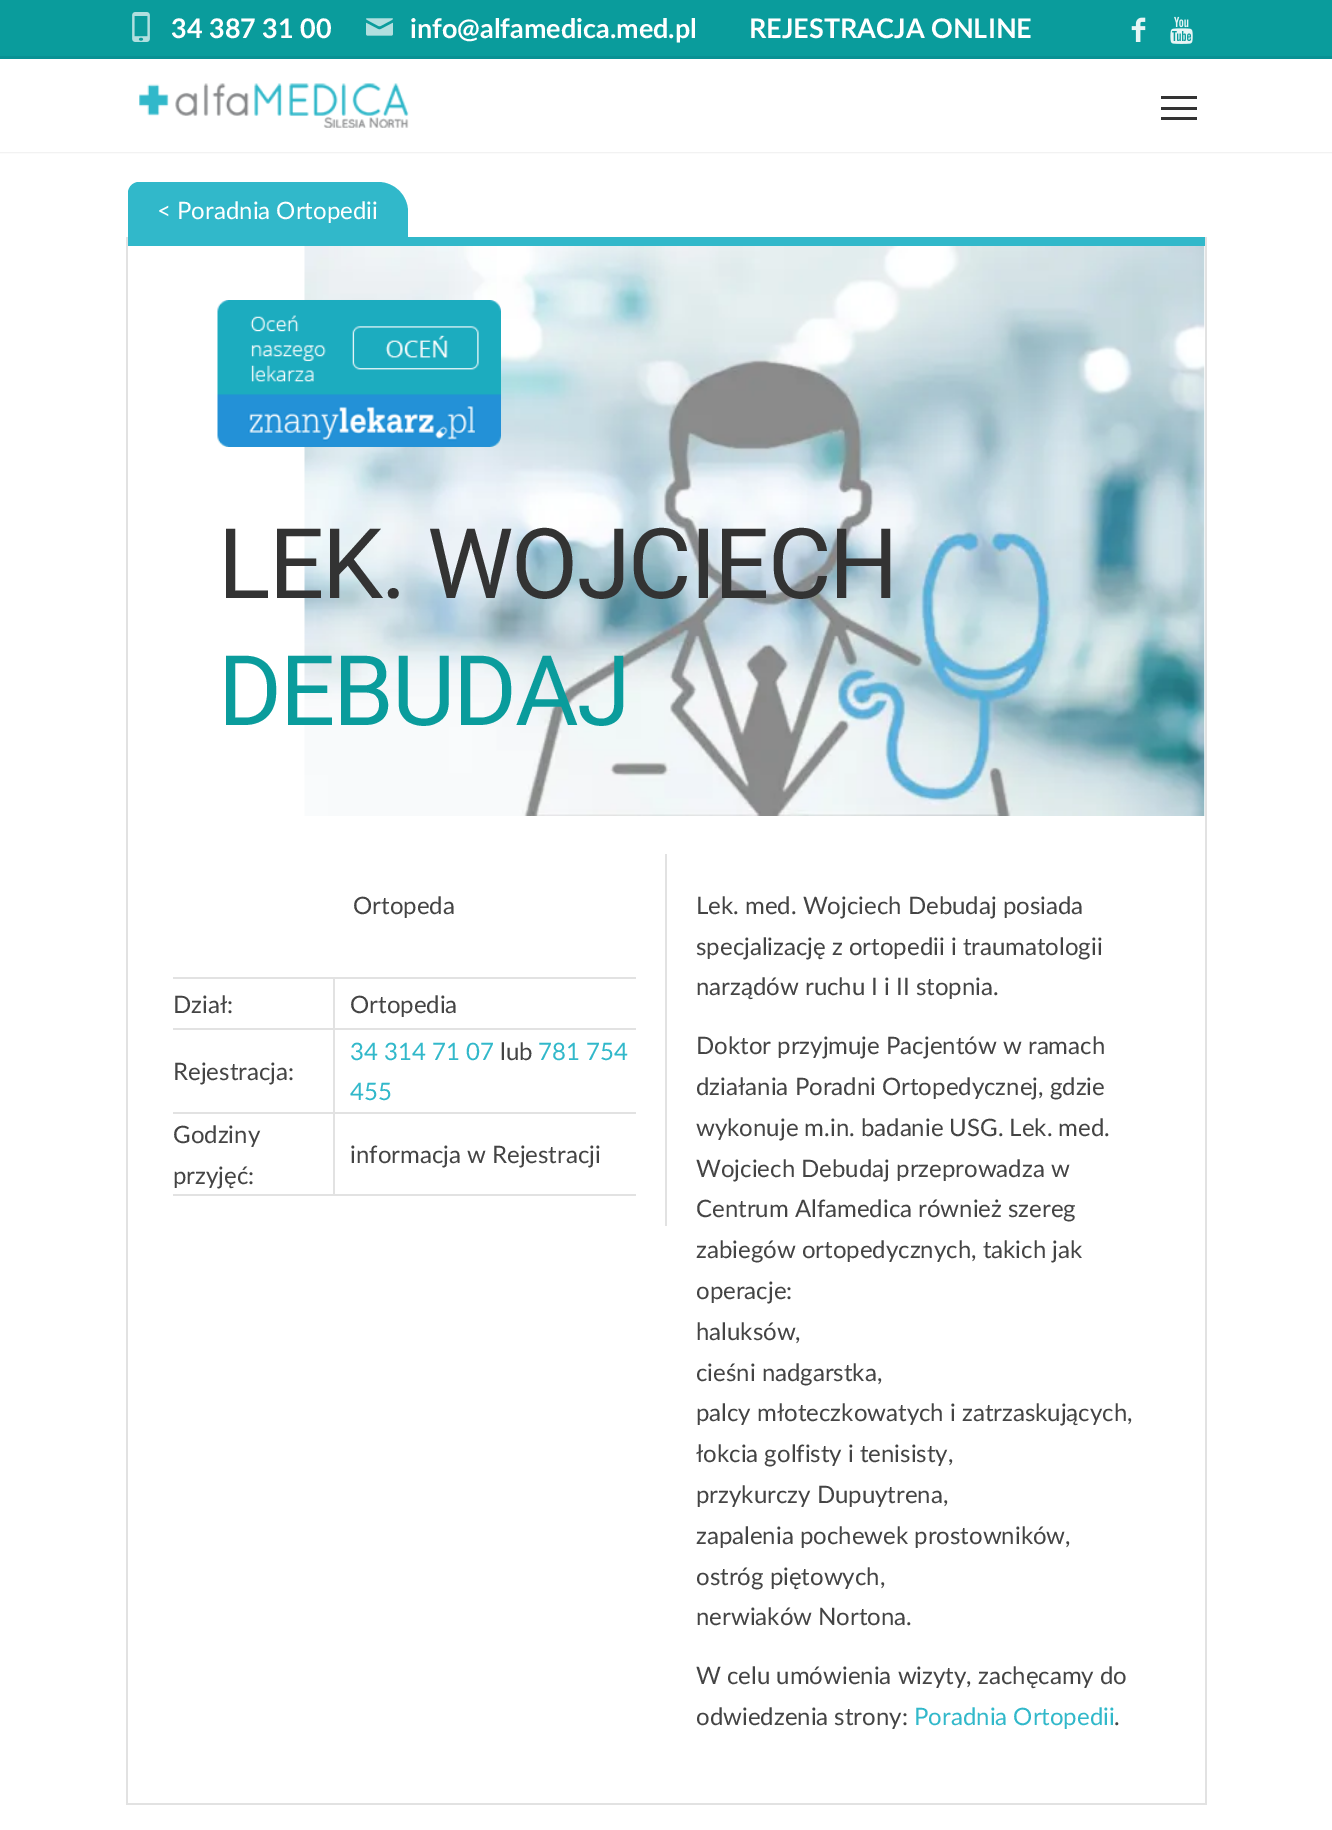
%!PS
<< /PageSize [1332 1830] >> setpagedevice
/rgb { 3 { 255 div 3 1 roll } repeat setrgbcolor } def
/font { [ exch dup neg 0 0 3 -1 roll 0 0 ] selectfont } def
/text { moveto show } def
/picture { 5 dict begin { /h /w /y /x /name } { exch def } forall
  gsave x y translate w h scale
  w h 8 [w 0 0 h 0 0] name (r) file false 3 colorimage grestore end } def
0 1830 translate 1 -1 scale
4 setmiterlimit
255 255 255 rgb
0 0 1332 1830 rectfill
242 242 242 rgb
2 setlinewidth
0 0 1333 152 rectstroke
255 255 255 rgb
0 59 1332 93 rectfill
10 156 156 rgb
0 0 1332 56 rectfill
9 145 148 rgb
0 56 1332 3 rectfill
(img_01.rgb) 132 12 18 30 picture
(img_02.rgb) 366 18 27 18 picture
(img_03.rgb) 1131 17 15 25 picture
(img_04.rgb) 1170 16 23 28 picture
(img_05.rgb) 139 83 270 45 picture
51 51 51 rgb
1161 96 36 3 rectfill
1161 107 36 3 rectfill
1161 117 36 3 rectfill
49 184 202 rgb
139 182 moveto 239 0 rlineto 16.5 0 30 13.5 30 30 rcurveto 0 25 rlineto -280 0 rlineto 0 -44 rlineto 0 -6 5 -11 11 -11 rcurveto closepath fill
226 226 226 rgb
1205 237 2 1568 rectfill
126 1803 1080 2 rectfill
126 237 2 1568 rectfill
49 184 202 rgb
128 237 1077 9 rectfill
(img_06.rgb) 304 246 901 570 picture
(img_07.rgb) 217 300 284 147 picture
226 226 226 rgb
665 854 2 372 rectfill
173 977 463 2 rectfill
173 1028 463 2 rectfill
173 1112 463 2 rectfill
173 1194 463 2 rectfill
333 977 2 219 rectfill
/Lato-Bold 27 font
255 255 255 rgb
(34 387 31 00) 171 38 text
(info@alfamedica.med.pl) 410 38 text
(REJESTRACJA ONLINE) 749 38 text
/Lato-Regular 24 font
(< Poradnia Ortopedii) 157 219 text
/Roboto-Regular 97.5 font
51 51 51 rgb
218 598 moveto -2 0 (LEK. WOJCIECH) ashow
10 156 156 rgb
218 725 moveto -2 0 (DEBUDAJ) ashow
/Lato-Regular 24 font
68 68 68 rgb
(Ortopeda) 353 914 text
(Dział:) 173 1013 text
(Ortopedia) 350 1013 text
(Rejestracja:) 173 1080 text
49 184 202 rgb
(34 314 71 07) 350 1060 text
68 68 68 rgb
(lub) 500 1060 text
49 184 202 rgb
(781 754) 538 1060 text
(455) 350 1100 text
68 68 68 rgb
(Godziny) 173 1143 text
(przyjęć:) 173 1184 text
(informacja w Rejestracji) 350 1163 text
(Lek. med. Wojciech Debudaj posiada) 696 914 text
(specjalizację z ortopedii i traumatologii) 696 955 text
(narządów ruchu I i II stopnia.) 696 995 text
(Doktor przyjmuje Pacjentów w ramach) 696 1054 text
(działania Poradni Ortopedycznej, gdzie) 696 1095 text
(wykonuje m.in. badanie USG. Lek. med.) 696 1136 text
(Wojciech Debudaj przeprowadza w) 696 1177 text
(Centrum Alfamedica również szereg) 696 1217 text
(zabiegów ortopedycznych, takich jak) 696 1258 text
(operacje:) 696 1299 text
(haluksów,) 696 1340 text
(cieśni nadgarstka,) 696 1381 text
(palcy młoteczkowatych i zatrzaskujących,) 696 1421 text
(łokcia golfisty i tenisisty,) 696 1462 text
(przykurczy Dupuytrena,) 696 1503 text
(zapalenia pochewek prostowników,) 696 1544 text
(ostróg piętowych,) 696 1585 text
(nerwiaków Nortona.) 696 1625 text
(W celu umówienia wizyty, zachęcamy do) 696 1684 text
(odwiedzenia strony:) 696 1725 text
49 184 202 rgb
(Poradnia Ortopedii) 914 1725 text
68 68 68 rgb
(.) 1114 1725 text
showpage
